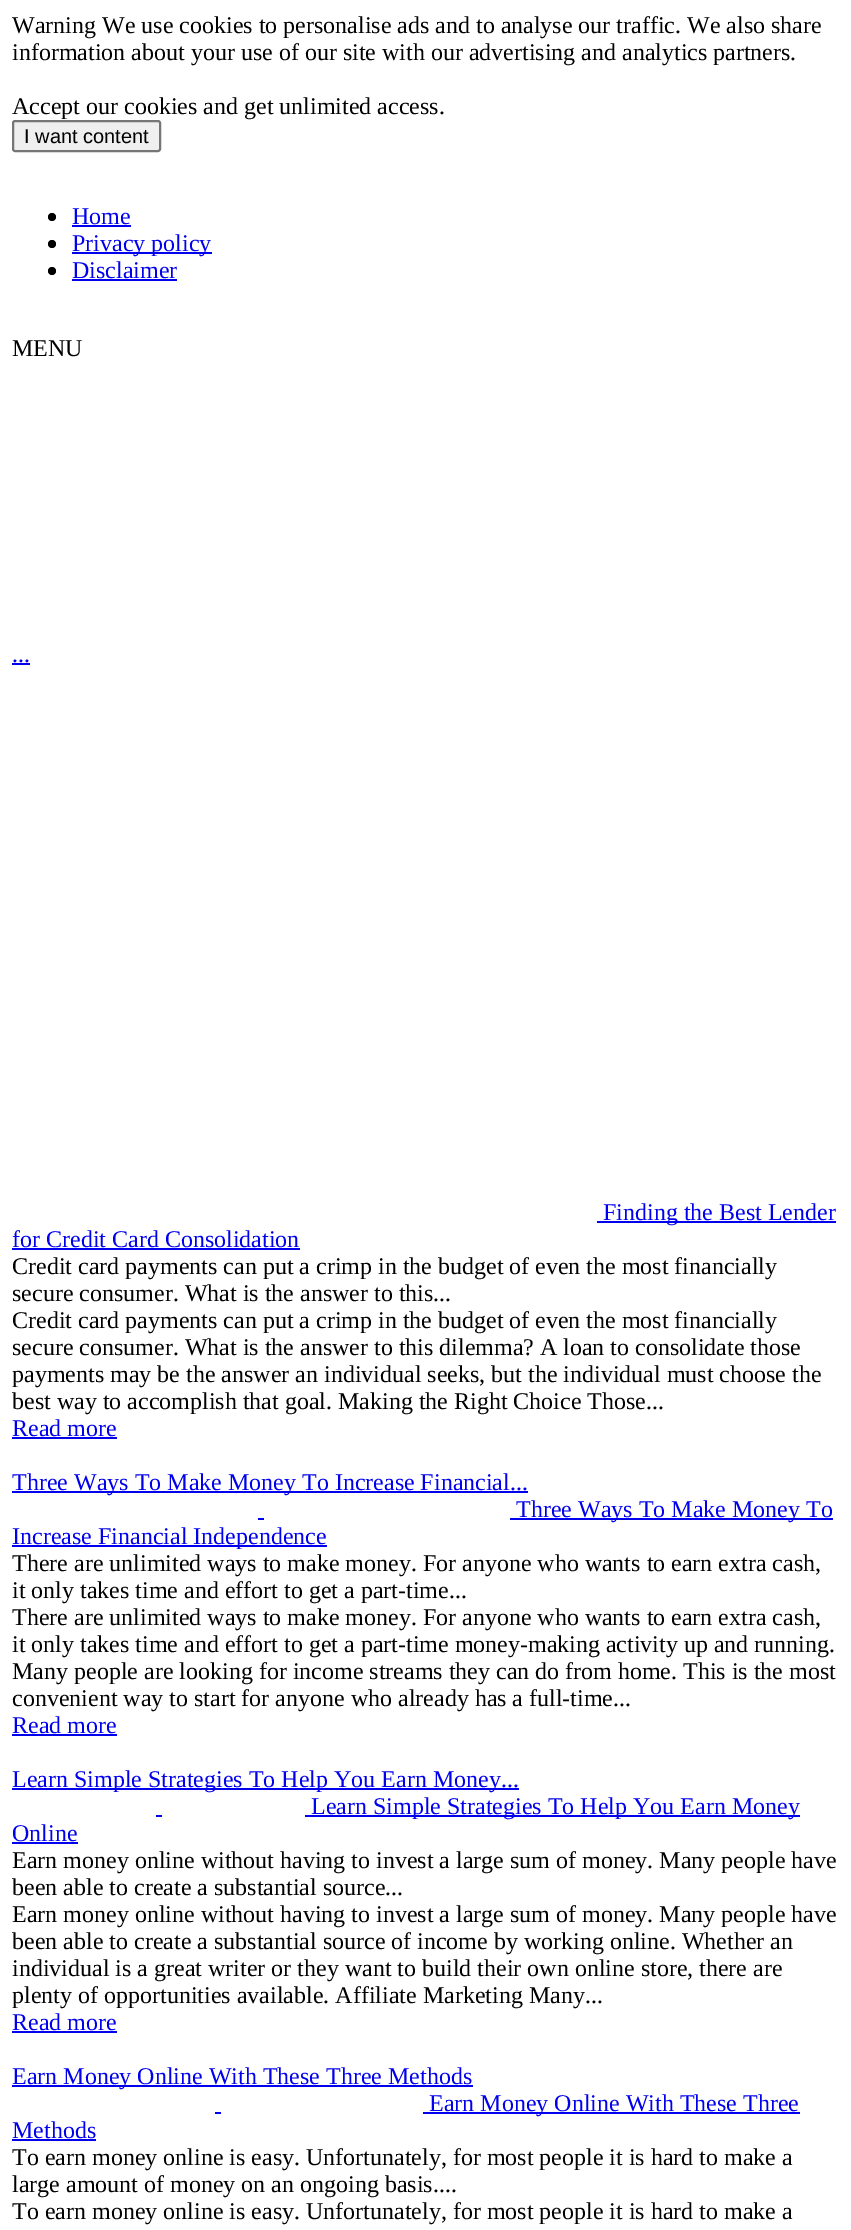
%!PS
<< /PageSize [851 2230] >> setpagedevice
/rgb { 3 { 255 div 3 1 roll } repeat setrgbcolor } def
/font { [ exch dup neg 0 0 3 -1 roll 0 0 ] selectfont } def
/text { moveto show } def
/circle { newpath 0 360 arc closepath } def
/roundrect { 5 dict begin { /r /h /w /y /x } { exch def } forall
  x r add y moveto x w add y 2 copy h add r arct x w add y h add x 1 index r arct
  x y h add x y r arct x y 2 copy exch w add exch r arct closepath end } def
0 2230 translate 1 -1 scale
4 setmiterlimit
255 255 255 rgb
0 0 851 2230 rectfill
239 239 239 rgb
13 121 147 30 2 roundrect gsave fill grestore
118 118 118 rgb
2 setlinewidth
stroke
0 0 0 rgb
52 217 4 circle fill
0 0 238 rgb
72 225 59 2 rectfill
0 0 0 rgb
52 244 4 circle fill
0 0 238 rgb
72 252 140 2 rectfill
0 0 0 rgb
52 271 4 circle fill
0 0 238 rgb
72 279 105 2 rectfill
12 663 18 2 rectfill
597 1221 239 2 rectfill
12 1248 288 2 rectfill
12 1437 105 2 rectfill
12 1491 516 2 rectfill
510 1518 323 2 rectfill
258 1518 6 2 rectfill
12 1545 315 2 rectfill
12 1734 105 2 rectfill
12 1788 507 2 rectfill
305 1815 495 2 rectfill
156 1815 6 2 rectfill
12 1842 66 2 rectfill
12 2031 105 2 rectfill
12 2085 461 2 rectfill
423 2112 377 2 rectfill
215 2112 6 2 rectfill
12 2139 84 2 rectfill
/LiberationSerif-Regular 24 font
0 0 0 rgb
(Warning We use cookies to personalise ads and to analyse our traffic. We also share) 12 33 text
(information about your use of our site with our advertising and analytics partners.) 12 60 text
(Accept our cookies and get unlimited access.) 12 114 text
/LiberationSans-Regular 20 font
(I want content) 24 143 text
/LiberationSerif-Regular 24 font
0 0 238 rgb
(Home) 72 224 text
(Privacy policy) 72 251 text
(Disclaimer) 72 278 text
0 0 0 rgb
(MENU) 12 356 text
0 0 238 rgb
(...) 12 662 text
(Finding the Best Lender) 603 1220 text
(for Credit Card Consolidation) 12 1247 text
0 0 0 rgb
(Credit card payments can put a crimp in the budget of even the most financially) 12 1274 text
(secure consumer. What is the answer to this...) 12 1301 text
(Credit card payments can put a crimp in the budget of even the most financially) 12 1328 text
(secure consumer. What is the answer to this dilemma? A loan to consolidate those) 12 1355 text
(payments may be the answer an individual seeks, but the individual must choose the) 12 1382 text
(best way to accomplish that goal. Making the Right Choice Those...) 12 1409 text
0 0 238 rgb
(Read more) 12 1436 text
(Three Ways To Make Money To Increase Financial...) 12 1490 text
(Three Ways To Make Money To) 516 1517 text
(Increase Financial Independence) 12 1544 text
0 0 0 rgb
(There are unlimited ways to make money. For anyone who wants to earn extra cash,) 12 1571 text
(it only takes time and effort to get a part-time...) 12 1598 text
(There are unlimited ways to make money. For anyone who wants to earn extra cash,) 12 1625 text
(it only takes time and effort to get a part-time money-making activity up and running.) 12 1652 text
(Many people are looking for income streams they can do from home. This is the most) 12 1679 text
(convenient way to start for anyone who already has a full-time...) 12 1706 text
0 0 238 rgb
(Read more) 12 1733 text
(Learn Simple Strategies To Help You Earn Money...) 12 1787 text
(Learn Simple Strategies To Help You Earn Money) 311 1814 text
(Online) 12 1841 text
0 0 0 rgb
(Earn money online without having to invest a large sum of money. Many people have) 12 1868 text
(been able to create a substantial source...) 12 1895 text
(Earn money online without having to invest a large sum of money. Many people have) 12 1922 text
(been able to create a substantial source of income by working online. Whether an) 12 1949 text
(individual is a great writer or they want to build their own online store, there are) 12 1976 text
(plenty of opportunities available. Affiliate Marketing Many...) 12 2003 text
0 0 238 rgb
(Read more) 12 2030 text
(Earn Money Online With These Three Methods) 12 2084 text
(Earn Money Online With These Three) 429 2111 text
(Methods) 12 2138 text
0 0 0 rgb
(To earn money online is easy. Unfortunately, for most people it is hard to make a) 12 2165 text
(large amount of money on an ongoing basis....) 12 2192 text
(To earn money online is easy. Unfortunately, for most people it is hard to make a) 12 2219 text
showpage
